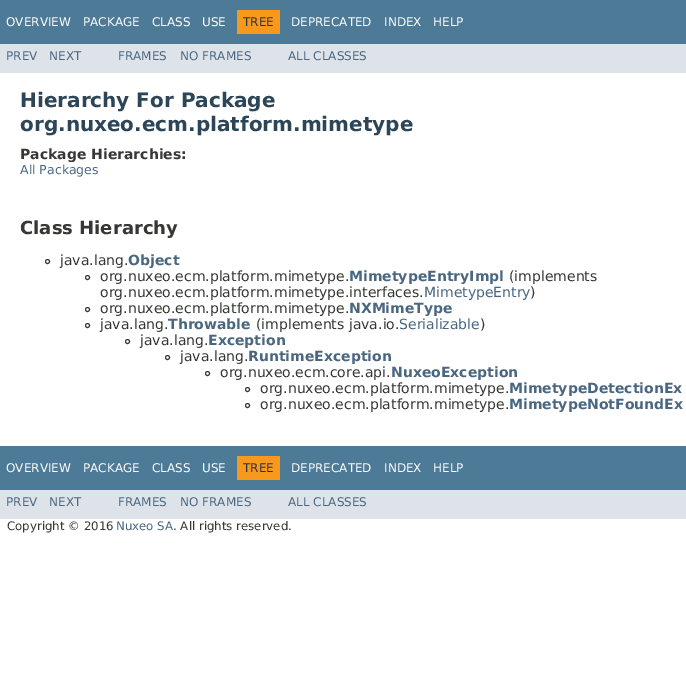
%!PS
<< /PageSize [686 676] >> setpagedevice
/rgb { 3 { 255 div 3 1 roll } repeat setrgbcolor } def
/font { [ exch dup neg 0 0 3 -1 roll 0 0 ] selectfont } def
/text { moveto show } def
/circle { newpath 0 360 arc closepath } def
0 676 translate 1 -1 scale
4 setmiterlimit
255 255 255 rgb
0 0 686 676 rectfill
77 122 151 rgb
0 0 686 44 rectfill
248 152 29 rgb
237 10 43 24 rectfill
222 227 233 rgb
0 44 686 29 rectfill
53 56 51 rgb
47.5 261.5 2 circle stroke
87.5 277.5 2 circle stroke
87.5 309.5 2 circle stroke
87.5 325.5 2 circle stroke
127.5 341.5 2 circle stroke
167.5 357.5 2 circle stroke
207.5 373.5 2 circle stroke
247.5 389.5 2 circle stroke
247.5 405.5 2 circle stroke
77 122 151 rgb
0 446 686 44 rectfill
248 152 29 rgb
237 456 43 24 rectfill
222 227 233 rgb
0 490 686 29 rectfill
/DejaVuSans-Regular 12 font
255 255 255 rgb
(OVERVIEW) 6 26 text
(PACKAGE) 83 26 text
(CLASS) 152 26 text
(USE) 202 26 text
37 52 65 rgb
(TREE) 243 26 text
255 255 255 rgb
(DEPRECATED) 291 26 text
(INDEX) 384 26 text
(HELP) 433 26 text
74 103 130 rgb
(PREV) 6 60 text
(NEXT) 49 60 text
(FRAMES) 118 60 text
(NO FRAMES) 180 60 text
(ALL CLASSES) 288 60 text
/DejaVuSans-Bold 20 font
44 69 87 rgb
(Hierarchy For Package) 20 107 text
(org.nuxeo.ecm.platform.mimetype) 20 131 text
/DejaVuSans-Bold 14 font
53 56 51 rgb
(Package Hierarchies:) 20 159 text
/DejaVuSans-Regular 12.5 font
74 103 130 rgb
(All Packages) 20 174 text
/DejaVuSans-Bold 18 font
53 56 51 rgb
(Class Hierarchy) 20 234 text
/DejaVuSans-Regular 14 font
(java.lang.) 60 265 text
/DejaVuSans-Bold 14 font
74 103 130 rgb
(Object) 128 265 text
/DejaVuSans-Regular 14 font
53 56 51 rgb
(org.nuxeo.ecm.platform.mimetype.) 100 281 text
/DejaVuSans-Bold 14 font
74 103 130 rgb
(MimetypeEntryImpl) 349 281 text
/DejaVuSans-Regular 14 font
53 56 51 rgb
(\(implements) 509 281 text
(org.nuxeo.ecm.platform.mimetype.interfaces.) 100 297 text
74 103 130 rgb
(MimetypeEntry) 424 297 text
53 56 51 rgb
(\)) 530 297 text
(org.nuxeo.ecm.platform.mimetype.) 100 313 text
/DejaVuSans-Bold 14 font
74 103 130 rgb
(NXMimeType) 349 313 text
/DejaVuSans-Regular 14 font
53 56 51 rgb
(java.lang.) 100 329 text
/DejaVuSans-Bold 14 font
74 103 130 rgb
(Throwable) 168 329 text
/DejaVuSans-Regular 14 font
53 56 51 rgb
(\(implements java.io.) 256 329 text
74 103 130 rgb
(Serializable) 399 329 text
53 56 51 rgb
(\)) 480 329 text
(java.lang.) 140 345 text
/DejaVuSans-Bold 14 font
74 103 130 rgb
(Exception) 208 345 text
/DejaVuSans-Regular 14 font
53 56 51 rgb
(java.lang.) 180 361 text
/DejaVuSans-Bold 14 font
74 103 130 rgb
(RuntimeException) 248 361 text
/DejaVuSans-Regular 14 font
53 56 51 rgb
(org.nuxeo.ecm.core.api.) 220 377 text
/DejaVuSans-Bold 14 font
74 103 130 rgb
(NuxeoException) 391 377 text
/DejaVuSans-Regular 14 font
53 56 51 rgb
(org.nuxeo.ecm.platform.mimetype.) 260 393 text
/DejaVuSans-Bold 14 font
74 103 130 rgb
(MimetypeDetectionEx) 509 393 text
/DejaVuSans-Regular 14 font
53 56 51 rgb
(org.nuxeo.ecm.platform.mimetype.) 260 409 text
/DejaVuSans-Bold 14 font
74 103 130 rgb
(MimetypeNotFoundEx) 509 409 text
/DejaVuSans-Regular 12 font
255 255 255 rgb
(OVERVIEW) 6 472 text
(PACKAGE) 83 472 text
(CLASS) 152 472 text
(USE) 202 472 text
37 52 65 rgb
(TREE) 243 472 text
255 255 255 rgb
(DEPRECATED) 291 472 text
(INDEX) 384 472 text
(HELP) 433 472 text
74 103 130 rgb
(PREV) 6 506 text
(NEXT) 49 506 text
(FRAMES) 118 506 text
(NO FRAMES) 180 506 text
(ALL CLASSES) 288 506 text
/DejaVuSans-Regular 11.75 font
53 56 51 rgb
(Copyright © 2016) 7 530 text
74 103 130 rgb
(Nuxeo SA) 116 530 text
53 56 51 rgb
(. All rights reserved.) 173 530 text
showpage
